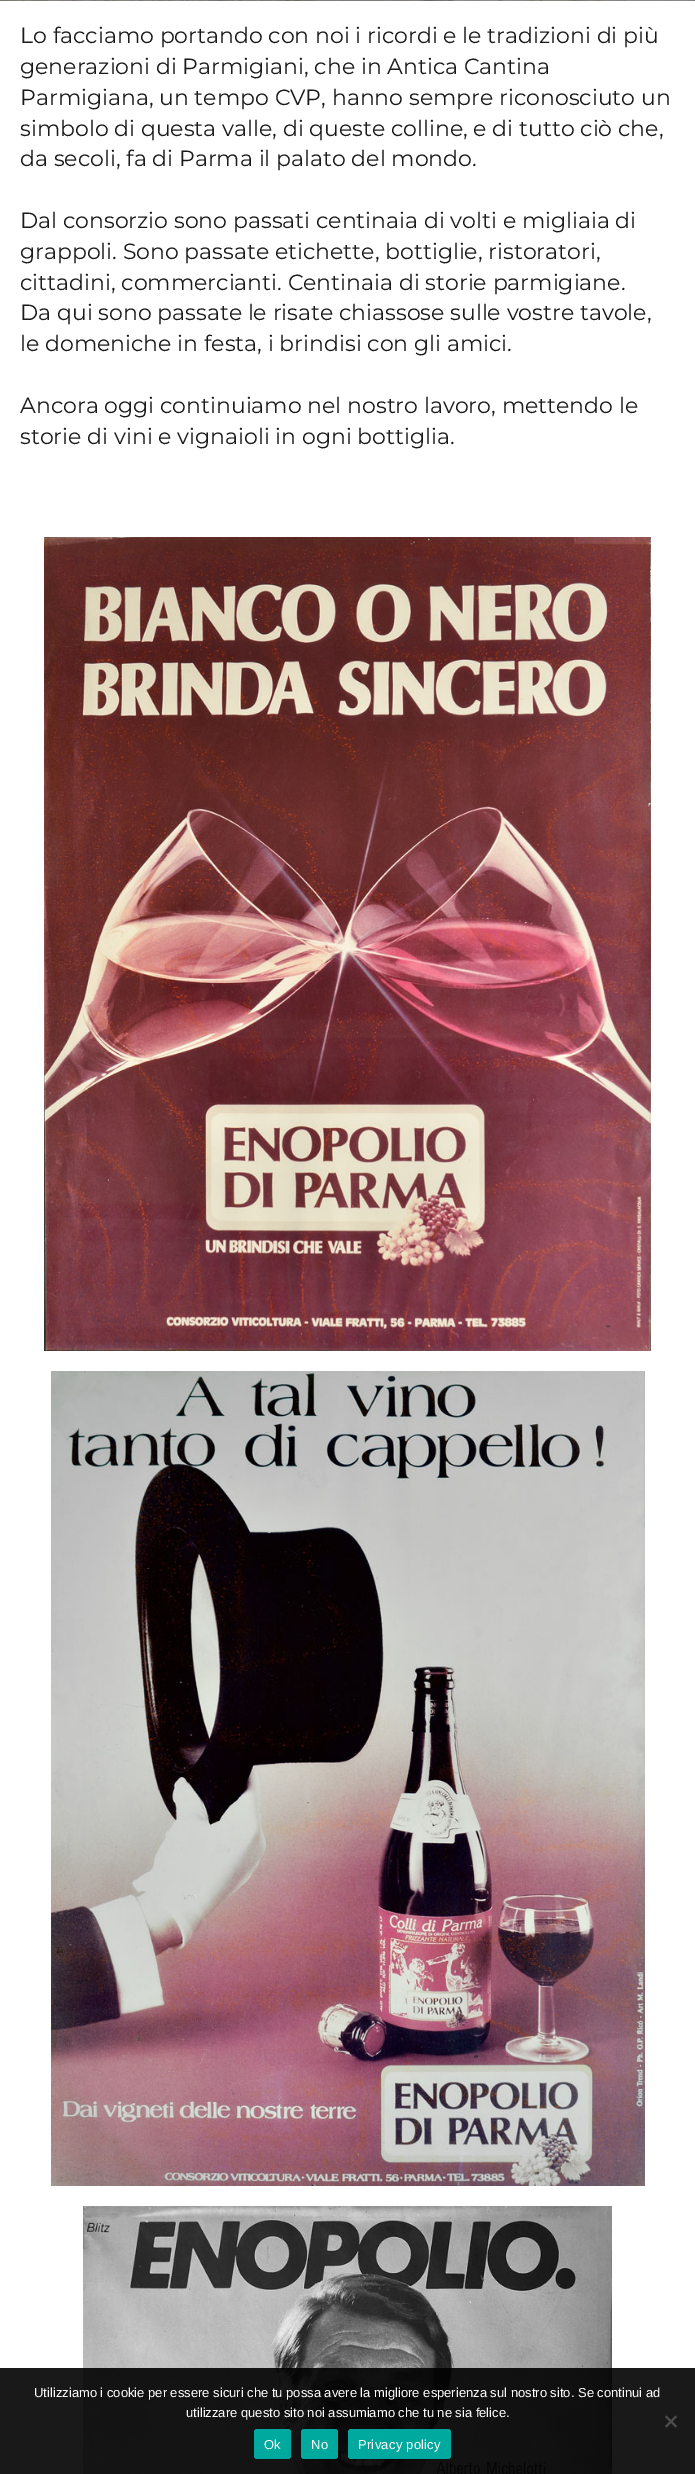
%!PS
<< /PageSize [695 2474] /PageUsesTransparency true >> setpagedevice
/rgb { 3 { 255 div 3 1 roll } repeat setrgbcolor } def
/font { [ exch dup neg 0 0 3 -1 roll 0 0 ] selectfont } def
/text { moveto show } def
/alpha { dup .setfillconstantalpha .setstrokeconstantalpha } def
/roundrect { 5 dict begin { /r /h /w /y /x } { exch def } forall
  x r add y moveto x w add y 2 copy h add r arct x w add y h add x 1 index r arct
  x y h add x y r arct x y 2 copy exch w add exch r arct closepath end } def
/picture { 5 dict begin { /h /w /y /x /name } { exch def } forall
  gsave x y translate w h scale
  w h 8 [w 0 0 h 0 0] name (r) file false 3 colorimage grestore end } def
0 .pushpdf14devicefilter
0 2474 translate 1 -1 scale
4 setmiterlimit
255 255 255 rgb
0 0 695 2474 rectfill
(img_01.rgb) 0 0 695 1 picture
(img_02.rgb) 44 537 607 814 picture
(img_03.rgb) 51 1371 594 815 picture
(img_04.rgb) 83 2206 529 268 picture
0.9 alpha
0 0 0 rgb
0 2368 695 106 rectfill
1 alpha
77 77 77 rgb
675.5 2415.5 moveto 1.5 1.5 rlineto -10.5 10.5 rlineto -1.5 -1.5 rlineto closepath fill
665 2417 moveto 1.5 -1.5 rlineto 10.5 10.5 rlineto -1.5 1.5 rlineto closepath fill
0 169 157 rgb
254 2429 37 30 3 roundrect fill
301 2429 37 30 3 roundrect fill
348 2429 103 30 3 roundrect fill
/Montserrat-Regular 22 font
27 27 28 rgb
(Lo facciamo portando con noi i ricordi e le tradizioni di più) 20 43 text
(generazioni di Parmigiani, che in Antica Cantina) 20 74 text
(Parmigiana, un tempo CVP, hanno sempre riconosciuto un) 20 105 text
(simbolo di questa valle, di queste colline, e di tutto ciò che,) 20 136 text
(da secoli, fa di Parma il palato del mondo.) 20 166 text
(Dal consorzio sono passati centinaia di volti e migliaia di) 20 228 text
(grappoli. Sono passate etichette, bottiglie, ristoratori,) 20 259 text
(cittadini, commercianti. Centinaia di storie parmigiane.) 20 290 text
(Da qui sono passate le risate chiassose sulle vostre tavole,) 20 320 text
(le domeniche in festa, i brindisi con gli amici.) 20 351 text
(Ancora oggi continuiamo nel nostro lavoro, mettendo le) 20 413 text
(storie di vini e vignaioli in ogni bottiglia.) 20 444 text
/LiberationSans-Regular 13 font
255 255 255 rgb
(Utilizziamo i cookie per essere sicuri che tu possa avere la migliore esperienza sul nostro sito. Se continui ad) 34 2397 text
(utilizzare questo sito noi assumiamo che tu ne sia felice.) 186 2417 text
264 2449 moveto 0.25 0 (Ok) ashow
311 2449 moveto 0.25 0 (No) ashow
358 2449 moveto 0.25 0 (Privacy policy) ashow
.poppdf14devicefilter showpage
